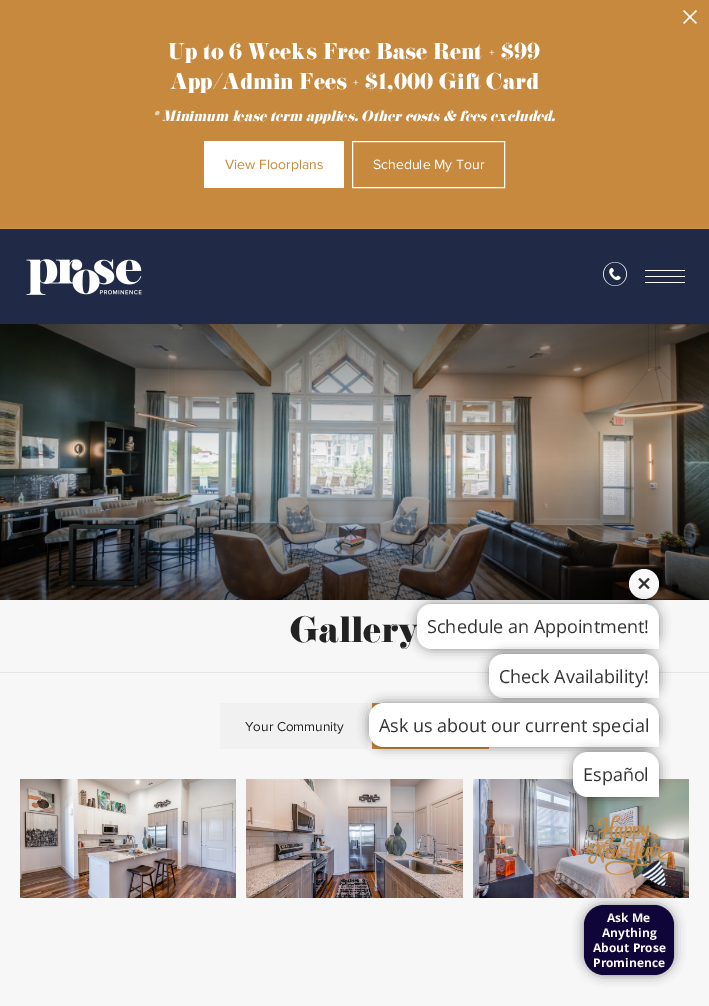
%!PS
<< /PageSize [709 1006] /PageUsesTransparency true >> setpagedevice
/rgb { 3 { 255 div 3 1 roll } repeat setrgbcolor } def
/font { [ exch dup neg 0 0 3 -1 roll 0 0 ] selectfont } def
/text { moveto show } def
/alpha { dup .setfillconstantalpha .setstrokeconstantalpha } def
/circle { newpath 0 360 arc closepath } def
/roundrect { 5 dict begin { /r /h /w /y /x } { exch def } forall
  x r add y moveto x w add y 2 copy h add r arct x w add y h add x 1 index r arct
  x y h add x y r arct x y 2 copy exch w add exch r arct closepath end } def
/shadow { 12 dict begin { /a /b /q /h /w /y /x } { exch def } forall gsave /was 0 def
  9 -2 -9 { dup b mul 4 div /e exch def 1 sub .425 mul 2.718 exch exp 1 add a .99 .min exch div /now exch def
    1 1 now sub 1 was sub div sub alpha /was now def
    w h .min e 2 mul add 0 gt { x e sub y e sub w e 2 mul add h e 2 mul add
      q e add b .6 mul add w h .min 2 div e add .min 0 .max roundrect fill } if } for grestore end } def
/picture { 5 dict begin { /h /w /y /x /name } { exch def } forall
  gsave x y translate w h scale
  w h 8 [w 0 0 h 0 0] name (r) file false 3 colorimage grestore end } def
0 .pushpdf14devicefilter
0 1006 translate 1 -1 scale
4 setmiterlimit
247 247 247 rgb
0 0 709 1006 rectfill
198 137 61 rgb
0 0 709 228 rectfill
204 149 80 rgb
0 228 709 1 rectfill
(img_01.rgb) 683 10 14 14 picture
255 255 255 rgb
204 141 140 47 rectfill
352.5 141.5 152 46 rectstroke
32 41 69 rgb
0 229 709 95 rectfill
(img_02.rgb) 26 259 116 36 picture
(img_03.rgb) 603 262 24 24 picture
255 255 255 rgb
645 270 40 1 rectfill
645 276 40 1 rectfill
645 282 40 1 rectfill
229 229 229 rgb
0 672 709 1 rectfill
(img_04.rgb) 0 324 709 276 picture
241 241 241 rgb
220 703 148 46 rectfill
198 137 61 rgb
372 703 117 46 rectfill
(img_05.rgb) 20 779 216 119 picture
(img_06.rgb) 246 779 217 119 picture
(img_07.rgb) 473 779 216 119 picture
0 0 0 rgb
629 569 30 30 15 5.5 0.45 shadow
249 249 249 rgb
644 584 15 circle fill
(img_08.rgb) 638 577 12 13 picture
0 0 0 rgb
417 604 242 45 15 5.5 0.45 shadow
584 905 90 70 20 5.5 0.45 shadow
(img_09.rgb) 586 815 89 83 picture
15 5 56 rgb
584 905 90 70 20 roundrect fill
/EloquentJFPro-Regular 20 font
255 255 255 rgb
(Up to 6 Weeks Free Base Rent + $99) 168 59 text
(App/Admin Fees + $1,000 Gift Card) 170 89 text
/EloquentJFPro-Italic 13 font
(* Minimum lease term applies. Other costs & fees excluded.) 153 121 text
/ProximaNova-Regular 14 font
198 137 61 rgb
(View Floorplans) 225 169 text
255 255 255 rgb
(Schedule My Tour) 373 169 text
/EloquentJFPro-Regular 32 font
34 34 34 rgb
(Gallery) 290 642 text
/ProximaNova-Regular 13.5 font
(Your Community) 245 731 text
255 255 255 rgb
432 604 moveto 212 0 rlineto 8.5 0 15 6.5 15 15 rcurveto 0 30 rlineto -227 0 rlineto -8.5 0 -15 -6.5 -15 -15 rcurveto 0 -15 rlineto 0 -8.5 6.5 -15 15 -15 rcurveto closepath fill
/OpenSans-Regular 18 font
51 51 51 rgb
(Schedule an Appointment!) 427 633 text
0 0 0 rgb
489 654 170 44 15 5.5 0.45 shadow
255 255 255 rgb
504 654 moveto 140 0 rlineto 8.5 0 15 6.5 15 15 rcurveto 0 29 rlineto -155 0 rlineto -8.5 0 -15 -6.5 -15 -15 rcurveto 0 -14 rlineto 0 -8.5 6.5 -15 15 -15 rcurveto closepath fill
51 51 51 rgb
(Check Availability!) 499 683 text
0 0 0 rgb
369 703 290 44 15 5.5 0.45 shadow
255 255 255 rgb
384 703 moveto 260 0 rlineto 8.5 0 15 6.5 15 15 rcurveto 0 29 rlineto -275 0 rlineto -8.5 0 -15 -6.5 -15 -15 rcurveto 0 -14 rlineto 0 -8.5 6.5 -15 15 -15 rcurveto closepath fill
51 51 51 rgb
(Ask us about our current special) 379 732 text
0 0 0 rgb
573 752 86 45 15 5.5 0.45 shadow
255 255 255 rgb
588 752 moveto 56 0 rlineto 8.5 0 15 6.5 15 15 rcurveto 0 30 rlineto -71 0 rlineto -8.5 0 -15 -6.5 -15 -15 rcurveto 0 -15 rlineto 0 -8.5 6.5 -15 15 -15 rcurveto closepath fill
51 51 51 rgb
(Español) 583 781 text
/OpenSans-Bold 12 font
255 255 255 rgb
(Ask Me) 607 922 text
(Anything) 602 937 text
(About Prose) 593 952 text
(Prominence) 593 967 text
.poppdf14devicefilter showpage
